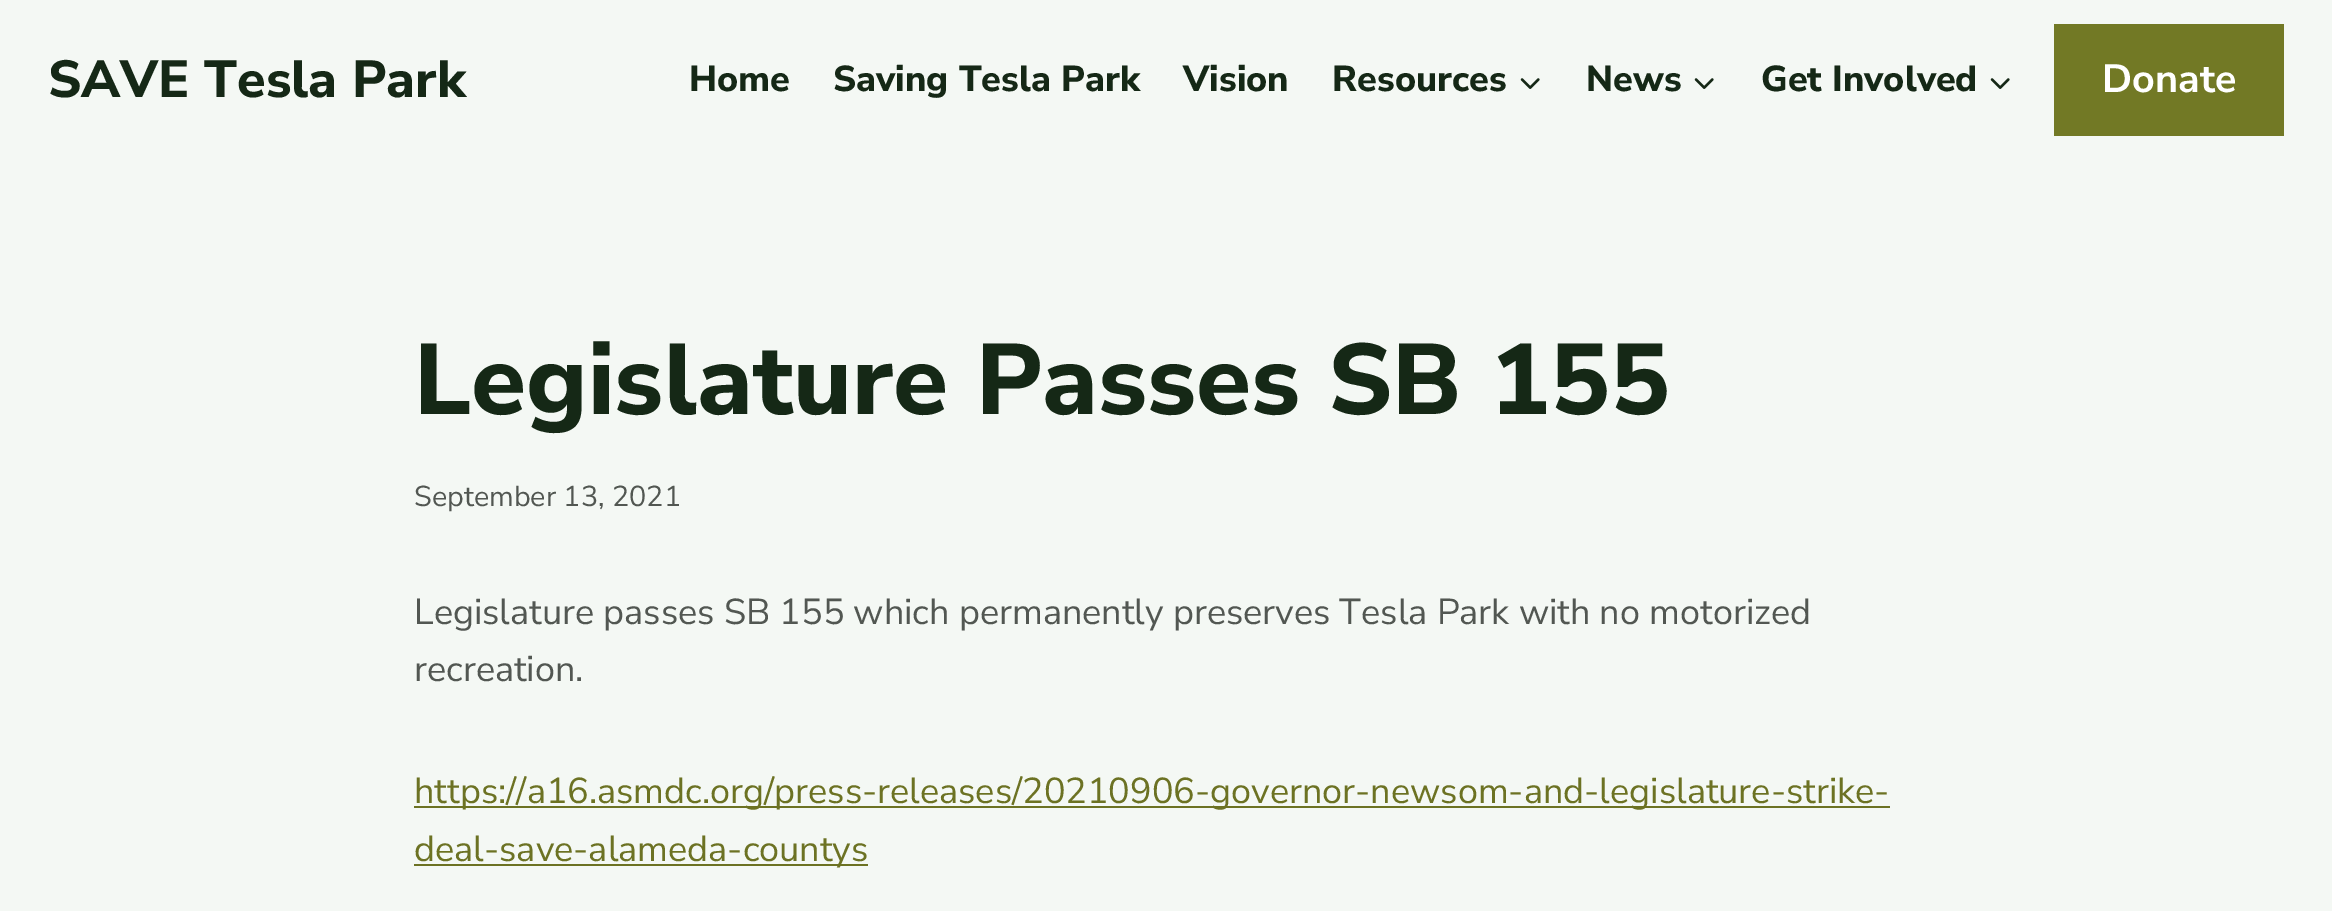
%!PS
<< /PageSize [2332 911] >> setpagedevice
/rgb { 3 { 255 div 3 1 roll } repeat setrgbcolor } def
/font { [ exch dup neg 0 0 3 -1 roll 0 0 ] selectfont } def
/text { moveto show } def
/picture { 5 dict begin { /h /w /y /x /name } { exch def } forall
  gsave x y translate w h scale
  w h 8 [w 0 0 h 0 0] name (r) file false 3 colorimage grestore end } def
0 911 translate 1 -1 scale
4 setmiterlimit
244 248 244 rgb
0 0 2332 911 rectfill
(img_01.rgb) 1520 78 20 11 picture
(img_01.rgb) 1694 78 20 11 picture
(img_01.rgb) 1990 78 20 11 picture
114 121 37 rgb
2054 24 230 112 rectfill
108 114 35 rgb
414 806 1476 2 rectfill
414 864 454 2 rectfill
/NunitoSans-ExtraBold 52 font
21 40 22 rgb
(SAVE Tesla Park) 48 97 text
/NunitoSans-ExtraBold 36 font
(Home) 689 91 text
(Saving Tesla Park) 833 91 text
(Vision) 1183 91 text
(Resources) 1332 91 text
(News) 1586 91 text
(Get Involved) 1761 91 text
/NunitoSans-Bold 39.5 font
255 255 255 rgb
(Donate) 2102 92 text
/NunitoSans-ExtraBold 100 font
21 40 22 rgb
(Legislature Passes SB 155) 414 414 text
/NunitoSans-Regular 28.75 font
82 87 82 rgb
(September 13, 2021) 414 506 text
/NunitoSans-Regular 36 font
(Legislature passes SB 155 which permanently preserves Tesla Park with no motorized) 414 624 text
(recreation.) 414 681 text
108 114 35 rgb
(https://a16.asmdc.org/press-releases/20210906-governor-newsom-and-legislature-strike-) 414 803 text
(deal-save-alameda-countys) 414 861 text
showpage
